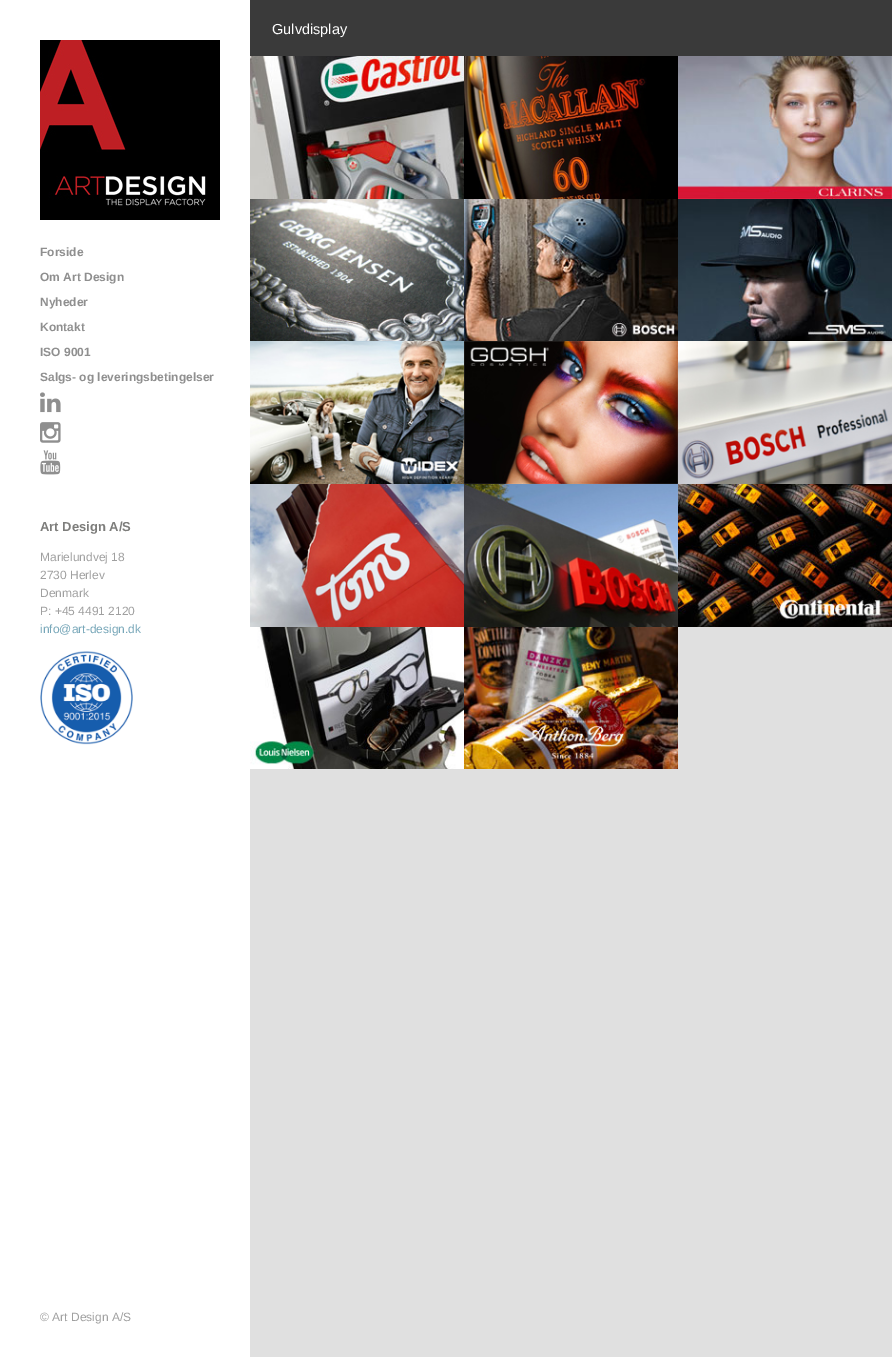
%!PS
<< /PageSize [892 1357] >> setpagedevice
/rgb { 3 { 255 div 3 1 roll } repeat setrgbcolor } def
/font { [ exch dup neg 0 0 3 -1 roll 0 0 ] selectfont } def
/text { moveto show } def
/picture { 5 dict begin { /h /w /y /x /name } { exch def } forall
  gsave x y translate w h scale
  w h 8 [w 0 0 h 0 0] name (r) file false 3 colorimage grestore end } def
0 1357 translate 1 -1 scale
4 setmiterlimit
224 224 224 rgb
0 0 892 1357 rectfill
58 58 58 rgb
250 0 642 56 rectfill
(img_01.rgb) 250 56 214 143 picture
(img_02.rgb) 464 56 214 143 picture
(img_03.rgb) 678 56 214 143 picture
(img_04.rgb) 250 199 214 142 picture
(img_05.rgb) 464 199 214 142 picture
(img_06.rgb) 678 199 214 142 picture
(img_07.rgb) 250 341 214 143 picture
(img_08.rgb) 464 341 214 143 picture
(img_09.rgb) 678 341 214 143 picture
(img_10.rgb) 250 484 214 143 picture
(img_11.rgb) 464 484 214 143 picture
(img_12.rgb) 678 484 214 143 picture
(img_13.rgb) 250 627 214 142 picture
(img_14.rgb) 464 627 214 142 picture
255 255 255 rgb
0 0 250 1357 rectfill
(img_15.rgb) 40 40 180 180 picture
(img_16.rgb) 40 392 21 21 picture
(img_17.rgb) 40 422 21 21 picture
(img_18.rgb) 40 450 21 25 picture
(img_19.rgb) 40 651 93 94 picture
/LiberationSans-Regular 14.5 font
(Gulvdisplay) 272 34 text
/LiberationSans-Regular 12 font
160 160 160 rgb
(© Art Design A/S) 40 1321 text
/LiberationSans-Bold 12 font
143 143 143 rgb
(Forside) 40 256 text
(Om Art Design) 40 281 text
(Nyheder) 40 306 text
(Kontakt) 40 331 text
(ISO 9001) 40 356 text
(Salgs- og leveringsbetingelser) 40 381 text
/LiberationSans-Bold 13 font
125 125 123 rgb
(Art Design A/S) 40 531 text
/LiberationSans-Regular 12 font
160 160 160 rgb
(Marielundvej 18) 40 561 text
(2730 Herlev) 40 579 text
(Denmark) 40 597 text
(P: +45 4491 2120) 40 615 text
119 167 185 rgb
(info@art-design.dk) 40 633 text
showpage
